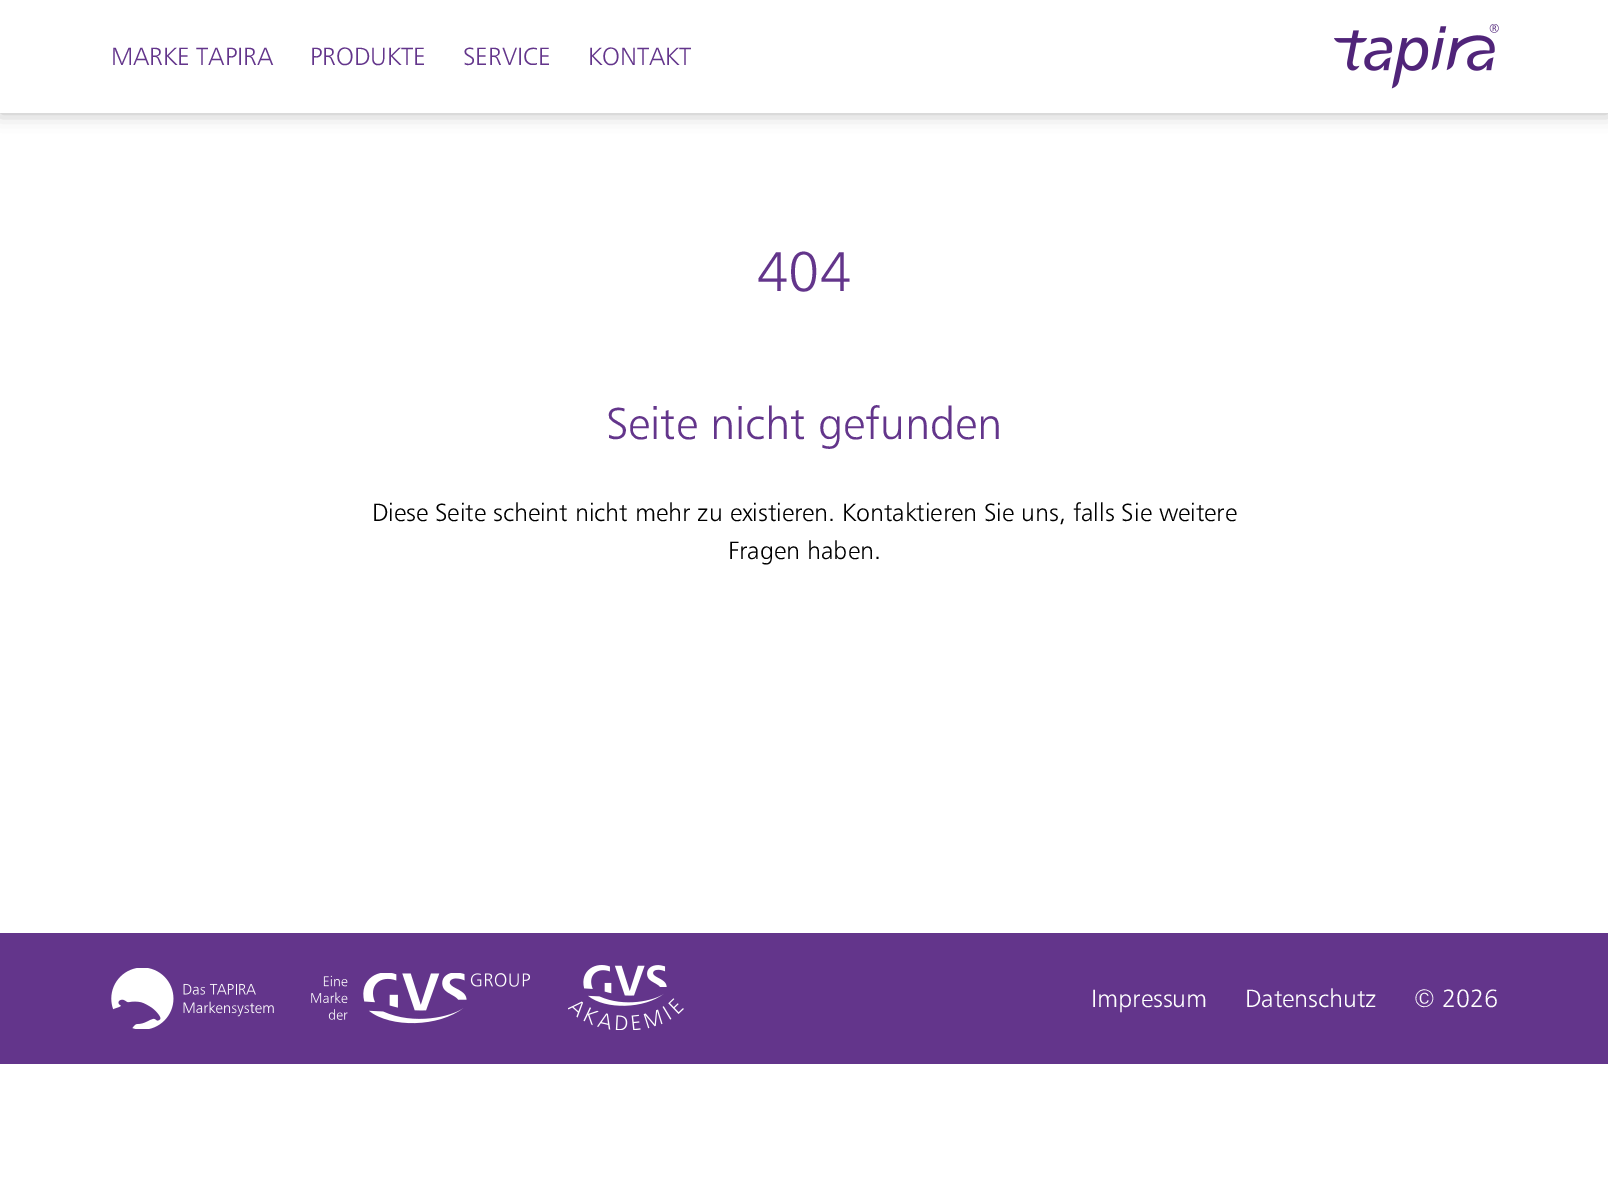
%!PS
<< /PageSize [1608 1204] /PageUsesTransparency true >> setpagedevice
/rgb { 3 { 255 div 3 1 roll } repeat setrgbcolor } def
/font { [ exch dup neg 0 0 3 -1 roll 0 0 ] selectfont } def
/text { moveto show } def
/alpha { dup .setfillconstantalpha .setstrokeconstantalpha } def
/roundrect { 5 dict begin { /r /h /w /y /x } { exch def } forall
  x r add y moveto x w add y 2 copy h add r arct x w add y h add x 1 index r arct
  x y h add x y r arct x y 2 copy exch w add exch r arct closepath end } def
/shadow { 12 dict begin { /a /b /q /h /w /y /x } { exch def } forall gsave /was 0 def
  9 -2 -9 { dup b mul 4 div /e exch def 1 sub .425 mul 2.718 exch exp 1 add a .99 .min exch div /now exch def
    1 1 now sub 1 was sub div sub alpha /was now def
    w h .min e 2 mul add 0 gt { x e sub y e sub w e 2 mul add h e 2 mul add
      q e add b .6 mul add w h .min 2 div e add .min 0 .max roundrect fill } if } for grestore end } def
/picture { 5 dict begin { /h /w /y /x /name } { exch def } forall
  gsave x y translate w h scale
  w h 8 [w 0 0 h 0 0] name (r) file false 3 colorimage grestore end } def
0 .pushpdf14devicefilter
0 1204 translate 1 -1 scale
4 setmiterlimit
255 255 255 rgb
0 0 1608 1204 rectfill
gsave
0 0 moveto 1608 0 rlineto 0 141 rlineto -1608 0 rlineto closepath 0 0 moveto 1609 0 rlineto 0 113 rlineto -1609 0 rlineto closepath eoclip newpath
0 0 0 rgb
0 0 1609 113 0 9 0.29 shadow
grestore
(img_01.rgb) 1334 24 165 65 picture
99 53 139 rgb
0 933 1608 131 rectfill
(img_02.rgb) 111 968 163 61 picture
(img_03.rgb) 311 973 219 51 picture
(img_04.rgb) 568 965 116 65 picture
/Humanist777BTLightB-Light 25 font
(MARKE TAPIRA) 111 65 text
(PRODUKTE) 310 65 text
(SERVICE) 463 65 text
(KONTAKT) 588 65 text
/Humanist777BTLightB-Light 56 font
(404) 757 291 text
/Humanist777BTLightB-Light 45 font
(Seite nicht gefunden) 606 439 text
/Humanist777BTLightB-Light 25 font
0 0 0 rgb
(Diese Seite scheint nicht mehr zu existieren. Kontaktieren Sie uns, falls Sie weitere) 372 521 text
(Fragen haben.) 728 559 text
255 255 255 rgb
(Impressum) 1091 1007 text
(Datenschutz) 1245 1007 text
(© 2026) 1414 1007 text
.poppdf14devicefilter showpage
